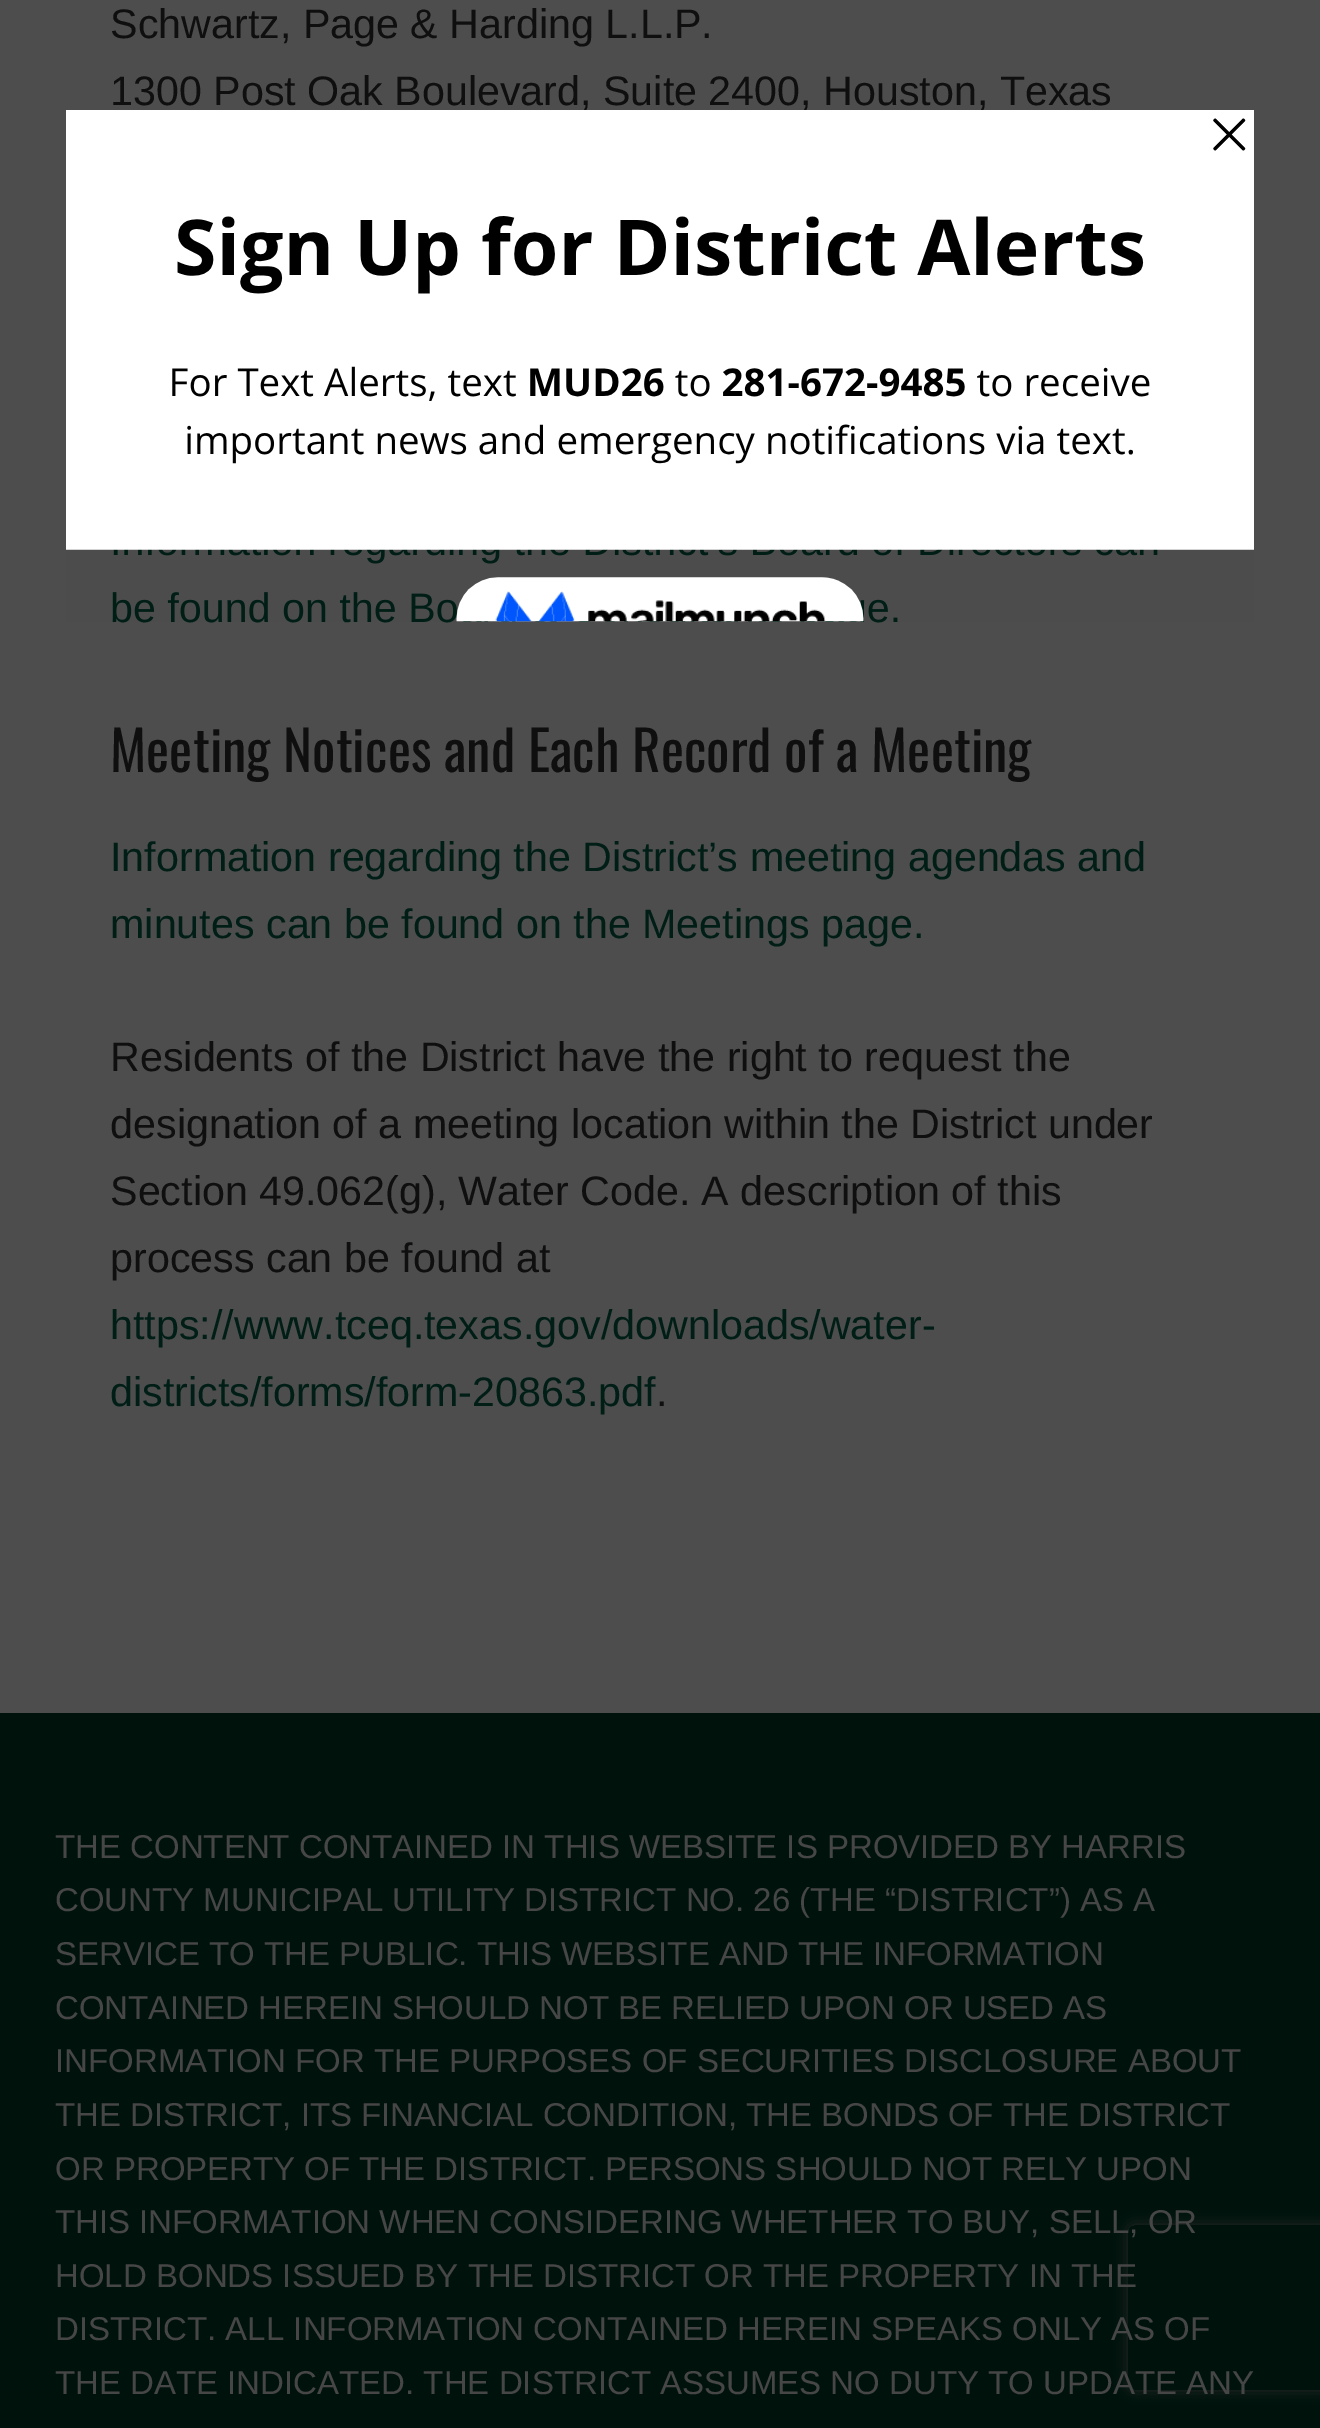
%!PS
<< /PageSize [1320 2428] /PageUsesTransparency true >> setpagedevice
/rgb { 3 { 255 div 3 1 roll } repeat setrgbcolor } def
/font { [ exch dup neg 0 0 3 -1 roll 0 0 ] selectfont } def
/text { moveto show } def
/alpha { dup .setfillconstantalpha .setstrokeconstantalpha } def
/roundrect { 5 dict begin { /r /h /w /y /x } { exch def } forall
  x r add y moveto x w add y 2 copy h add r arct x w add y h add x 1 index r arct
  x y h add x y r arct x y 2 copy exch w add exch r arct closepath end } def
/shadow { 12 dict begin { /a /b /q /h /w /y /x } { exch def } forall gsave /was 0 def
  9 -2 -9 { dup b mul 4 div /e exch def 1 sub .425 mul 2.718 exch exp 1 add a .99 .min exch div /now exch def
    1 1 now sub 1 was sub div sub alpha /was now def
    w h .min e 2 mul add 0 gt { x e sub y e sub w e 2 mul add h e 2 mul add
      q e add b .6 mul add w h .min 2 div e add .min 0 .max roundrect fill } if } for grestore end } def
/picture { 5 dict begin { /h /w /y /x /name } { exch def } forall
  gsave x y translate w h scale
  w h 8 [w 0 0 h 0 0] name (r) file false 3 colorimage grestore end } def
0 .pushpdf14devicefilter
0 2428 translate 1 -1 scale
4 setmiterlimit
77 77 77 rgb
0 0 1320 2428 rectfill
0 18 12 rgb
0 1713 1320 715 rectfill
gsave
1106 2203 moveto 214 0 rlineto 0 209 rlineto -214 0 rlineto closepath 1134 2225 moveto 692 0 rlineto 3.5 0 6 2.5 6 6 rcurveto 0 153 rlineto 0 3.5 -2.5 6 -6 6 rcurveto -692 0 rlineto -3.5 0 -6 -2.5 -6 -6 rcurveto 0 -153 rlineto 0 -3.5 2.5 -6 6 -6 rcurveto closepath eoclip newpath
38 38 38 rgb
1128 2225 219 165 6 7 1 shadow
grestore
/LiberationSans-Regular 41.25 font
15 15 15 rgb
(Schwartz, Page & Harding L.L.P.) 110 38 text
(1300 Post Oak Boulevard, Suite 2400, Houston, Texas) 110 105 text
0 30 22 rgb
(be found on the Bo) 110 622 text
(e.) 867 622 text
/Oswald-Regular 55 font
15 15 15 rgb
(Meeting Notices and Each Record of a Meeting) 110 772 text
/LiberationSans-Regular 41.25 font
0 30 22 rgb
(Information regarding the District’s meeting agendas and) 110 871 text
(minutes can be found on the Meetings page.) 110 938 text
15 15 15 rgb
(Residents of the District have the right to request the) 110 1071 text
(designation of a meeting location within the District under) 110 1138 text
(Section 49.062\(g\), Water Code. A description of this) 110 1205 text
(process can be found at) 110 1272 text
0 30 22 rgb
(https://www.tceq.texas.gov/downloads/water-) 110 1339 text
(districts/forms/form-20863.pdf) 110 1406 text
15 15 15 rgb
(.) 656 1406 text
/LiberationSans-Regular 33 font
70 70 70 rgb
(THE CONTENT CONTAINED IN THIS WEBSITE IS PROVIDED BY HARRIS) 55 1858 text
(COUNTY MUNICIPAL UTILITY DISTRICT NO. 26 \(THE “DISTRICT”\) AS A) 55 1911 text
(SERVICE TO THE PUBLIC. THIS WEBSITE AND THE INFORMATION) 55 1965 text
(CONTAINED HEREIN SHOULD NOT BE RELIED UPON OR USED AS) 55 2019 text
(INFORMATION FOR THE PURPOSES OF SECURITIES DISCLOSURE ABOUT) 55 2072 text
(THE DISTRICT, ITS FINANCIAL CONDITION, THE BONDS OF THE DISTRICT) 55 2126 text
(OR PROPERTY OF THE DISTRICT. PERSONS SHOULD NOT RELY UPON) 55 2180 text
(THIS INFORMATION WHEN CONSIDERING WHETHER TO BUY, SELL, OR) 55 2233 text
(HOLD BONDS ISSUED BY THE DISTRICT OR THE PROPERTY IN THE) 55 2287 text
(DISTRICT. ALL INFORMATION CONTAINED HEREIN SPEAKS ONLY AS OF) 55 2340 text
(THE DATE INDICATED. THE DISTRICT ASSUMES NO DUTY TO UPDATE ANY) 55 2394 text
(img_01.rgb) 66 110 1188 512 picture
.poppdf14devicefilter showpage
